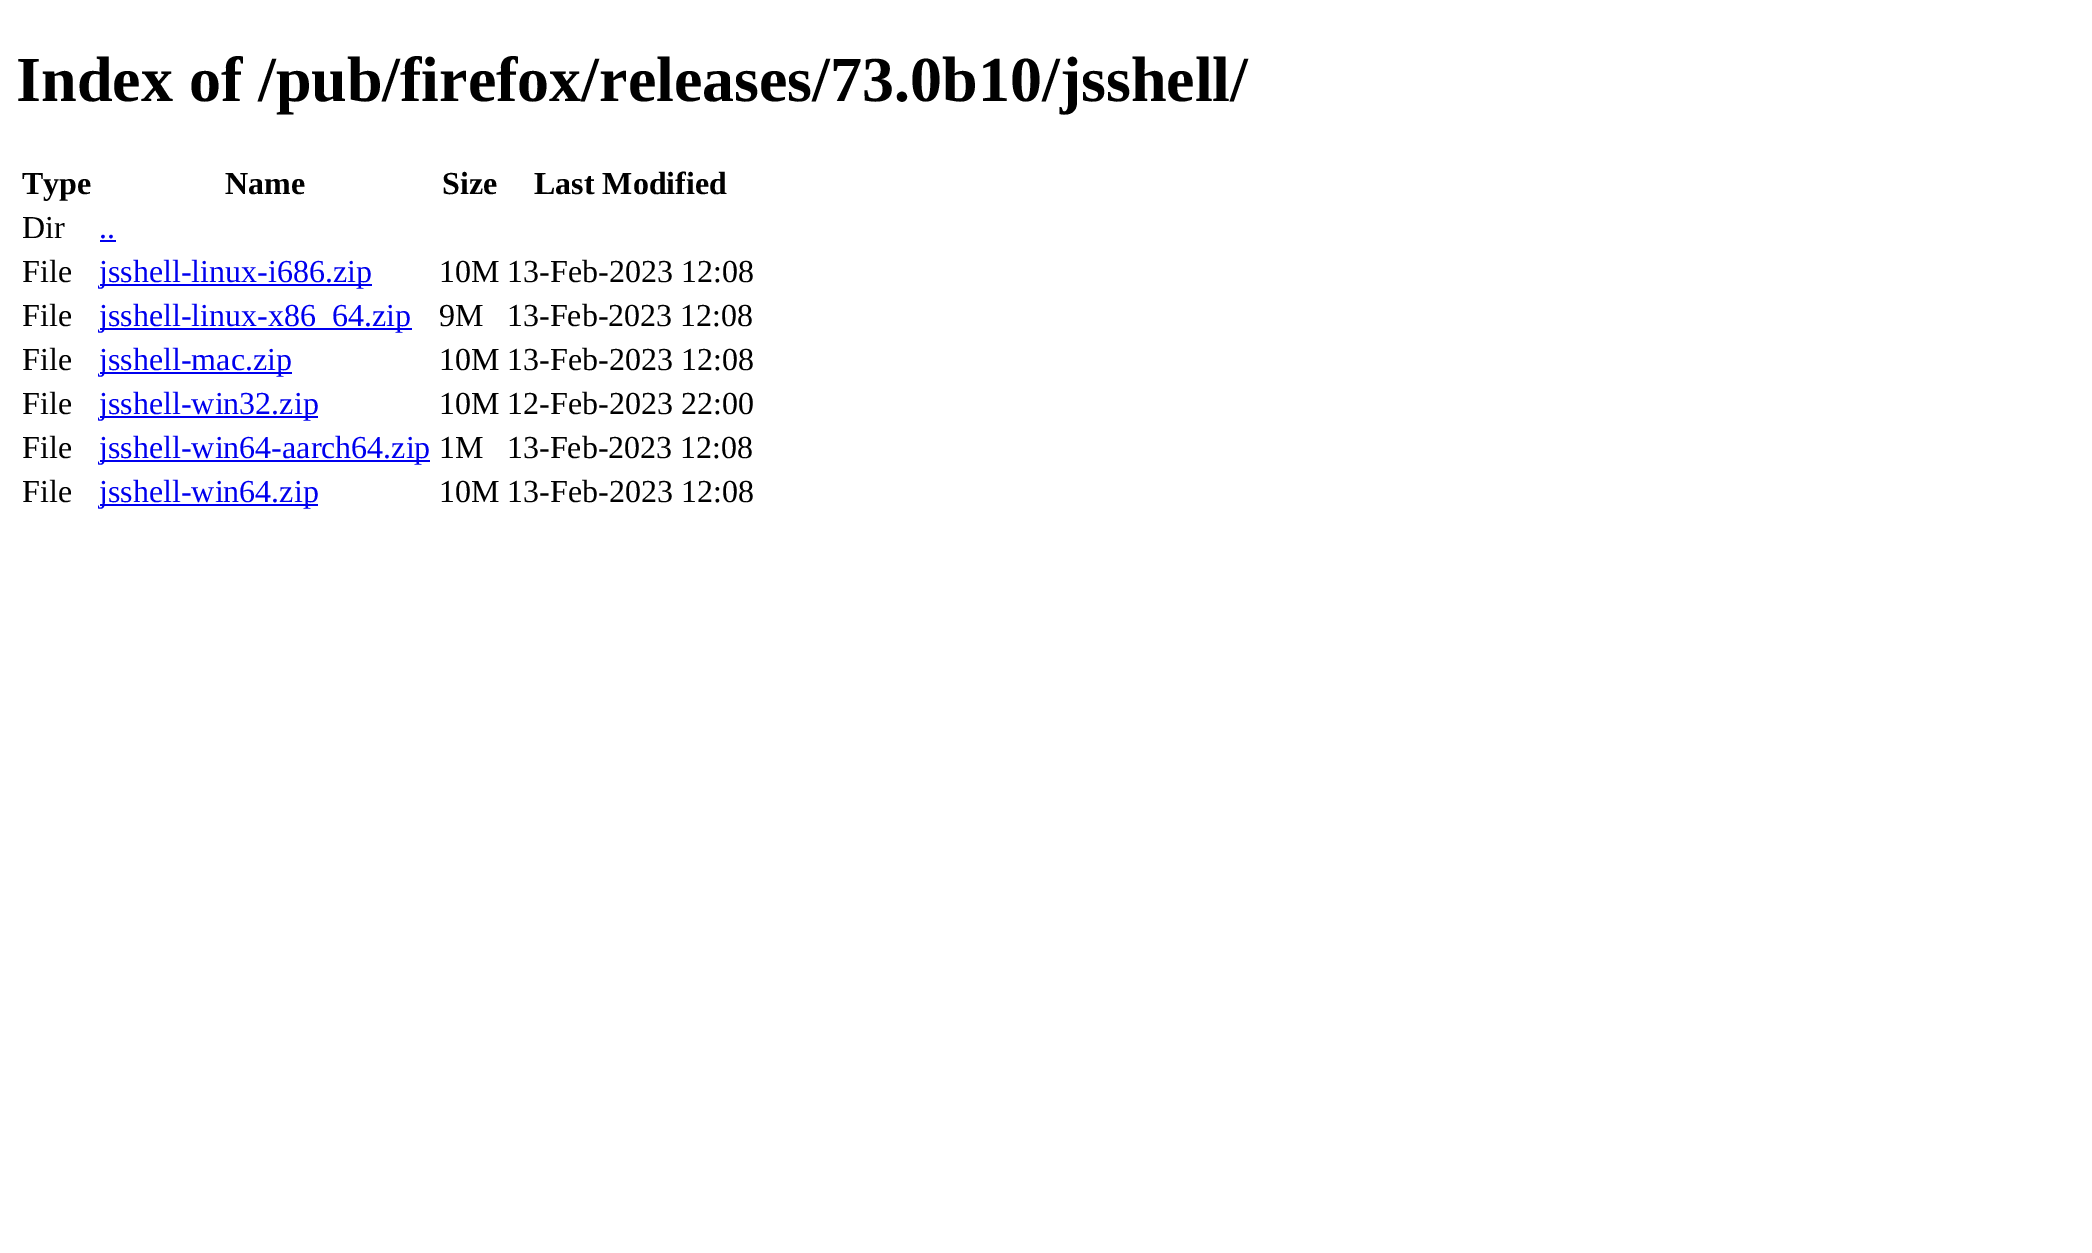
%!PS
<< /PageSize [2092 1253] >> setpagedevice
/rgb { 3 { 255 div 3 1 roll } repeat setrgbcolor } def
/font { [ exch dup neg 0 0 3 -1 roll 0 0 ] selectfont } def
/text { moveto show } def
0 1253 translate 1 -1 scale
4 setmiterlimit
255 255 255 rgb
0 0 2092 1253 rectfill
0 0 238 rgb
100 240 16 2 rectfill
100 284 272 2 rectfill
100 328 312 2 rectfill
100 372 192 2 rectfill
100 416 218 2 rectfill
100 460 330 2 rectfill
100 504 218 2 rectfill
/LiberationSerif-Bold 64 font
0 0 0 rgb
(Index of /pub/firefox/releases/73.0b10/jsshell/) 16 101 text
/LiberationSerif-Bold 32 font
(Type) 22 194 text
(Name) 225 194 text
(Size) 442 194 text
(Last Modified) 534 194 text
/LiberationSerif-Regular 32 font
(Dir) 22 238 text
0 0 238 rgb
(..) 99 238 text
0 0 0 rgb
(File) 22 282 text
0 0 238 rgb
(jsshell-linux-i686.zip) 99 282 text
0 0 0 rgb
(10M 13-Feb-2023 12:08) 439 282 text
(File) 22 326 text
0 0 238 rgb
(jsshell-linux-x86_64.zip) 99 326 text
0 0 0 rgb
(9M) 439 326 text
(13-Feb-2023 12:08) 507 326 text
(File) 22 370 text
0 0 238 rgb
(jsshell-mac.zip) 99 370 text
0 0 0 rgb
(10M 13-Feb-2023 12:08) 439 370 text
(File) 22 414 text
0 0 238 rgb
(jsshell-win32.zip) 99 414 text
0 0 0 rgb
(10M 12-Feb-2023 22:00) 439 414 text
(File) 22 458 text
0 0 238 rgb
(jsshell-win64-aarch64.zip) 99 458 text
0 0 0 rgb
(1M) 439 458 text
(13-Feb-2023 12:08) 507 458 text
(File) 22 502 text
0 0 238 rgb
(jsshell-win64.zip) 99 502 text
0 0 0 rgb
(10M 13-Feb-2023 12:08) 439 502 text
showpage
